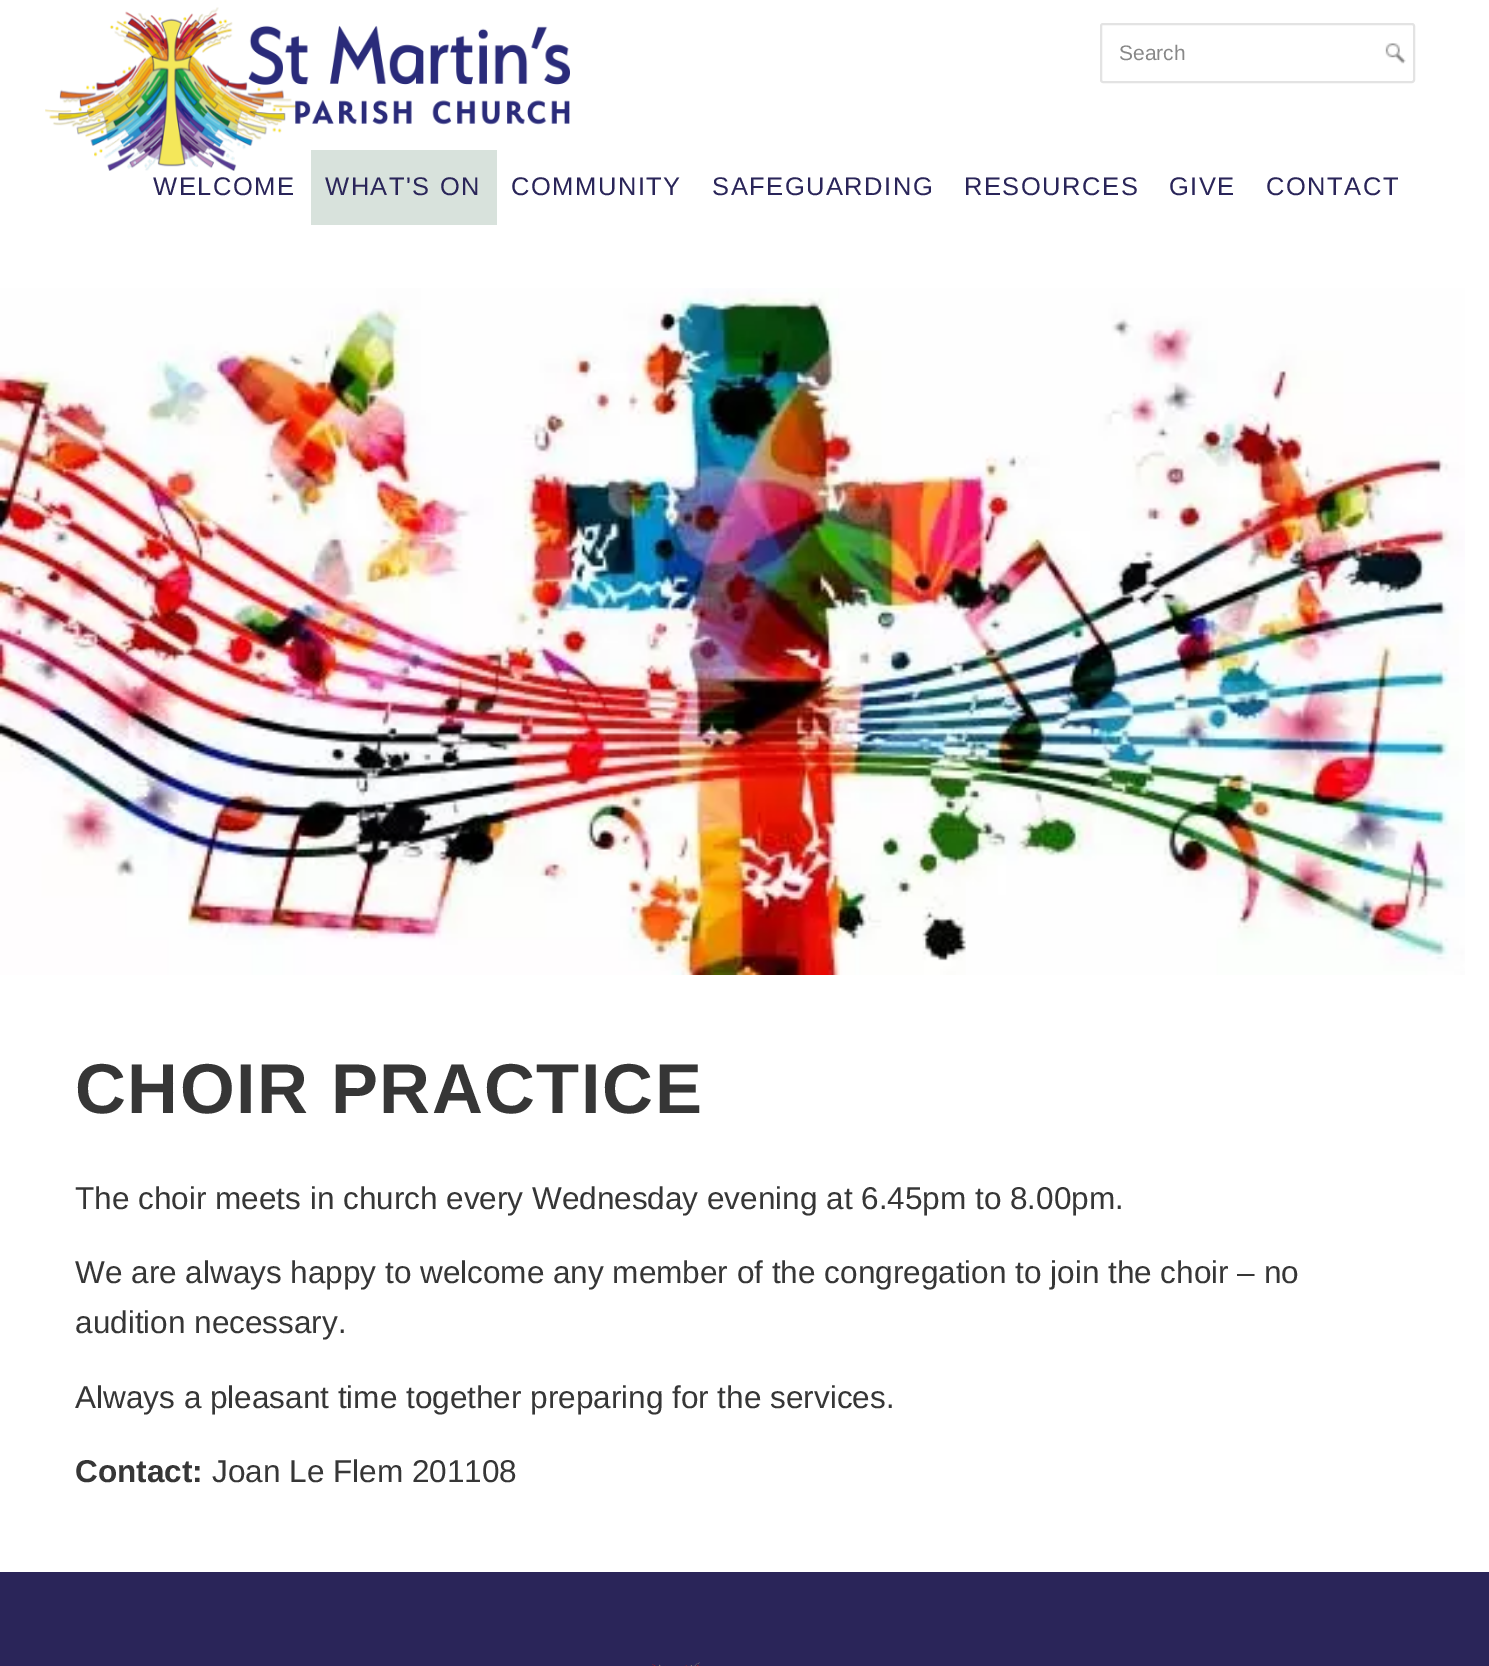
%!PS
<< /PageSize [1489 1666] >> setpagedevice
/rgb { 3 { 255 div 3 1 roll } repeat setrgbcolor } def
/font { [ exch dup neg 0 0 3 -1 roll 0 0 ] selectfont } def
/text { moveto show } def
/roundrect { 5 dict begin { /r /h /w /y /x } { exch def } forall
  x r add y moveto x w add y 2 copy h add r arct x w add y h add x 1 index r arct
  x y h add x y r arct x y 2 copy exch w add exch r arct closepath end } def
/picture { 5 dict begin { /h /w /y /x /name } { exch def } forall
  gsave x y translate w h scale
  w h 8 [w 0 0 h 0 0] name (r) file false 3 colorimage grestore end } def
0 1666 translate 1 -1 scale
4 setmiterlimit
255 255 255 rgb
0 0 1489 1666 rectfill
216 226 220 rgb
311 150 186 75 rectfill
(img_01.rgb) 45 7 525 164 picture
(img_02.rgb) 1385 43 21 21 picture
227 227 227 rgb
2 setlinewidth
1101 24 313 58 2 roundrect stroke
(img_03.rgb) 0 288 1465 687 picture
42 37 89 rgb
0 1572 1489 94 rectfill
(img_04.rgb) 652 1662 48 4 picture
/LiberationSans-Regular 21 font
136 136 136 rgb
(Search) 1119 60 text
/LiberationSans-Regular 25.5 font
42 37 89 rgb
153 195 moveto 1.5 0 (WELCOME) ashow
325 195 moveto 1.5 0 (WHAT'S ON) ashow
511 195 moveto 1.5 0 (COMMUNITY) ashow
712 195 moveto 1.5 0 (SAFEGUARDING) ashow
964 195 moveto 1.5 0 (RESOURCES) ashow
1169 195 moveto 1.5 0 (GIVE) ashow
1266 195 moveto 1.5 0 (CONTACT) ashow
/LiberationSans-Bold 70.5 font
54 54 54 rgb
75 1113 moveto 1.5 0 (CHOIR PRACTICE) ashow
/LiberationSans-Regular 31.5 font
(The choir meets in church every Wednesday evening at 6.45pm to 8.00pm.) 75 1209 text
(We are always happy to welcome any member of the congregation to join the choir – no) 75 1283 text
(audition necessary.) 75 1333 text
(Always a pleasant time together preparing for the services.) 75 1408 text
/LiberationSans-Bold 31.5 font
(Contact:) 75 1482 text
/LiberationSans-Regular 31.5 font
(Joan Le Flem 201108) 212 1482 text
showpage
